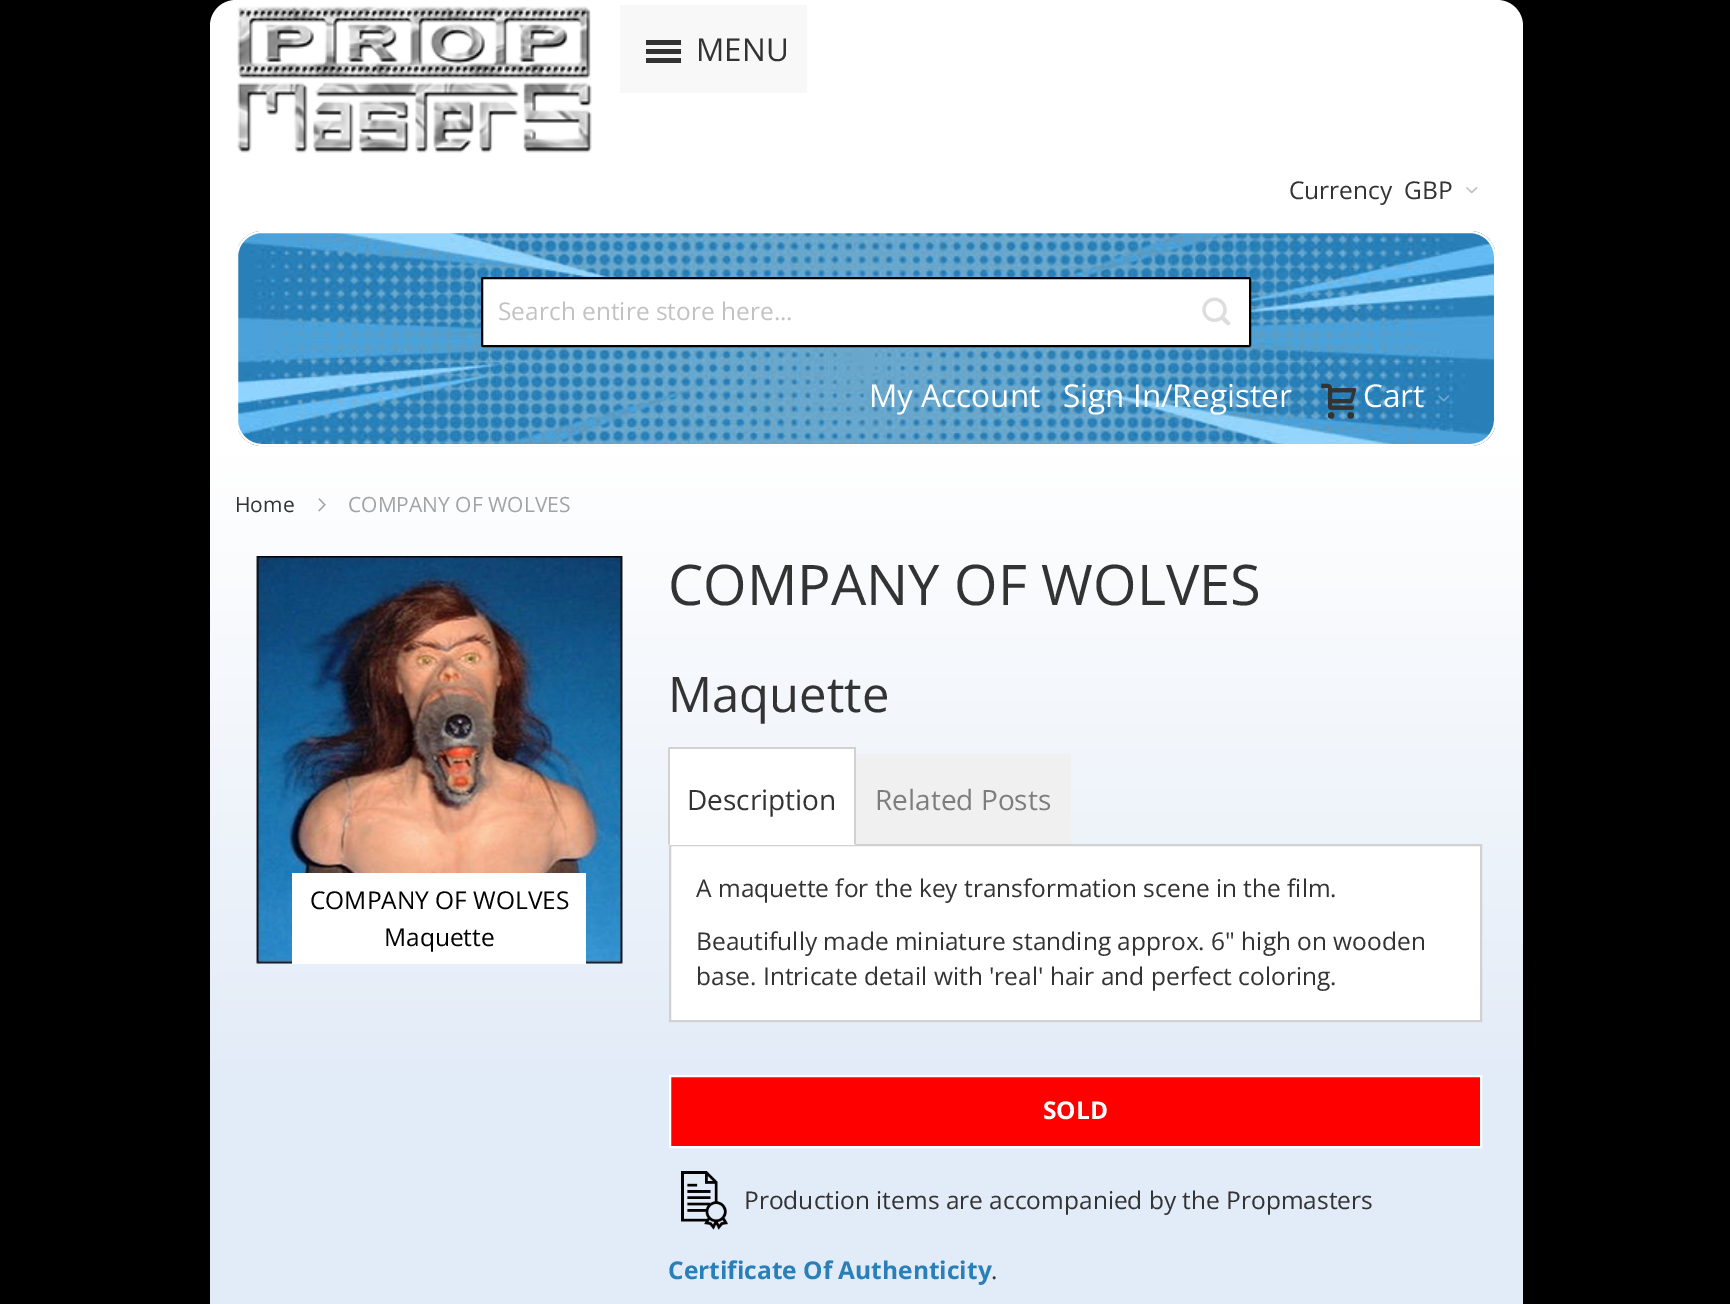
%!PS
<< /PageSize [1730 1304] /PageUsesTransparency true >> setpagedevice
/rgb { 3 { 255 div 3 1 roll } repeat setrgbcolor } def
/font { [ exch dup neg 0 0 3 -1 roll 0 0 ] selectfont } def
/text { moveto show } def
/alpha { dup .setfillconstantalpha .setstrokeconstantalpha } def
/roundrect { 5 dict begin { /r /h /w /y /x } { exch def } forall
  x r add y moveto x w add y 2 copy h add r arct x w add y h add x 1 index r arct
  x y h add x y r arct x y 2 copy exch w add exch r arct closepath end } def
/picture { 5 dict begin { /h /w /y /x /name } { exch def } forall
  gsave x y translate w h scale
  w h 8 [w 0 0 h 0 0] name (r) file false 3 colorimage grestore end } def
0 .pushpdf14devicefilter
0 1304 translate 1 -1 scale
4 setmiterlimit
0 0 0 rgb
0 0 1730 1304 rectfill
255 255 255 rgb
236 0 moveto 1261 0 rlineto 14.5 0 26 11.5 26 26 rcurveto 0 196 rlineto -1313 0 rlineto 0 -196 rlineto 0 -14.5 11.5 -26 26 -26 rcurveto closepath fill
(img_01.rgb) 237 6 355 147 picture
248 248 248 rgb
620 5 187 88 rectfill
51 51 51 rgb
646 40 35 5 rectfill
646 49 35 5 rectfill
646 58 35 5 rectfill
(img_02.rgb) 1466 187 12 7 picture
255 255 255 rgb
210 222 1313 233 rectfill
(img_03.rgb) 238 231 1257 216 picture
2 setlinewidth
237 232 1258 213 25 roundrect stroke
482 278 768 68 1 roundrect gsave fill grestore
0 0 0 rgb
stroke
(img_04.rgb) 1202 297 29 29 picture
0.08 alpha
1051 387 3 17 rectfill
1 alpha
(img_05.rgb) 1321 383 36 36 picture
(img_06.rgb) 1438 395 12 7 picture
gsave 210 455 moveto 1313 0 rlineto 0 849 rlineto -1313 0 rlineto closepath clip newpath
<< /ShadingType 2 /ColorSpace /DeviceRGB /Coords [866 455 866 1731] /Extend [true true] /Function << /FunctionType 3 /Domain [0 1] /Functions [<< /FunctionType 2 /Domain [0 1] /C0 [1 1 1] /C1 [0.886 0.922 0.973] /N 1 >> << /FunctionType 2 /Domain [0 1] /C0 [0.886 0.922 0.973] /C1 [0.886 0.922 0.973] /N 1 >>] /Bounds [0.5] /Encode [0 1 0 1] >> >> shfill grestore
(img_07.rgb) 318 498 8 14 picture
(img_08.rgb) 256 556 367 408 picture
255 255 255 rgb
292 873 294 91 rectfill
670 845 moveto 811 0 rlineto 0 176 rlineto -811 0 rlineto closepath gsave fill grestore
209 209 209 rgb
stroke
255 255 255 rgb
669 749 187 96 rectfill
209 209 209 rgb
669 747 187 2 rectfill
856 747 moveto 0 98 rlineto -2 -1 rlineto 0 -95 rlineto closepath fill
668 845 moveto 0 -98 rlineto 2 2 rlineto 0 95 rlineto closepath fill
240 240 240 rgb
856 754 215 90 rectfill
255 0 0 rgb
670 1076 moveto 811 0 rlineto 0 71 rlineto -811 0 rlineto closepath gsave fill grestore
255 255 255 rgb
stroke
(img_09.rgb) 681 1171 47 59 picture
/OpenSans-Regular 31.5 font
51 51 51 rgb
(MENU) 696 61 text
/OpenSans-Regular 24.5 font
(Currency) 1289 199 text
(GBP) 1404 199 text
194 194 194 rgb
(Search entire store here...) 498 320 text
/OpenSans-Regular 31.5 font
255 255 255 rgb
(My Account) 869 407 text
(Sign In/Register) 1063 407 text
(Cart) 1363 407 text
/OpenSans-Regular 21 font
51 51 51 rgb
(Home) 235 512 text
163 163 163 rgb
(COMPANY OF WOLVES) 348 512 text
/OpenSans-Regular 24.5 font
0 0 0 rgb
(COMPANY OF WOLVES) 310 909 text
(Maquette) 384 946 text
/OpenSans-Regular 56 font
51 51 51 rgb
(COMPANY OF WOLVES) 668 605 text
/OpenSans-Regular 49 font
(Maquette) 668 712 text
/OpenSans-Regular 28 font
(Description) 687 810 text
125 125 125 rgb
(Related Posts) 875 810 text
/OpenSans-Regular 24.5 font
51 51 51 rgb
(A maquette for the key transformation scene in the film.) 696 897 text
(Beautifully made miniature standing approx. 6" high on wooden) 696 950 text
(base. Intricate detail with 'real' hair and perfect coloring.) 696 985 text
/OpenSans-Bold 24.5 font
255 255 255 rgb
(SOLD) 1043 1119 text
/OpenSans-Regular 24.5 font
51 51 51 rgb
(Production items are accompanied by the Propmasters) 744 1209 text
/OpenSans-Bold 24.5 font
41 127 184 rgb
(Certificate Of Authenticity) 668 1279 text
/OpenSans-Regular 24.5 font
51 51 51 rgb
(.) 991 1279 text
.poppdf14devicefilter showpage
